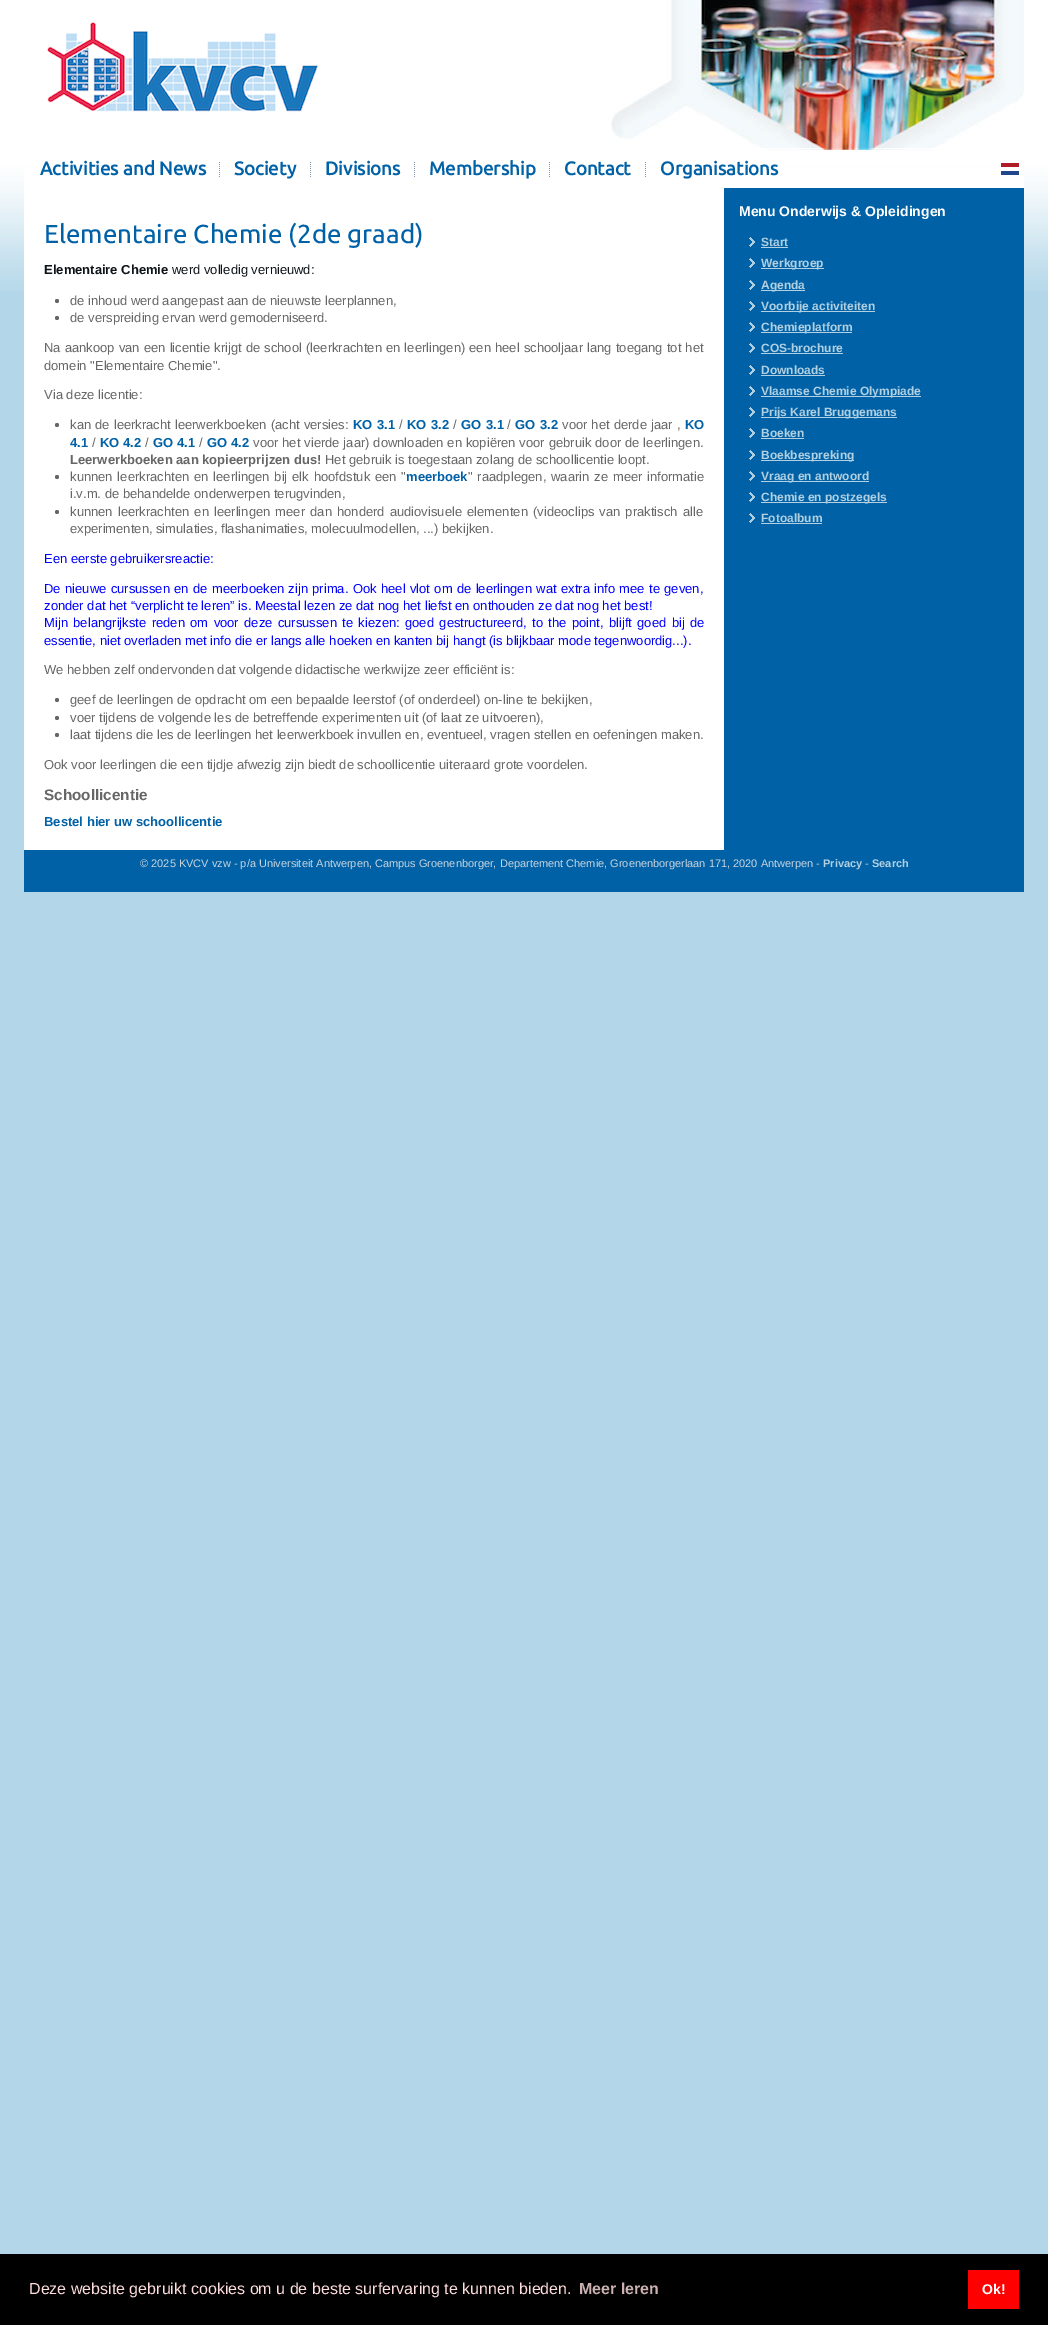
%!PS
<< /PageSize [1048 2325] >> setpagedevice
/rgb { 3 { 255 div 3 1 roll } repeat setrgbcolor } def
/font { [ exch dup neg 0 0 3 -1 roll 0 0 ] selectfont } def
/text { moveto show } def
/circle { newpath 0 360 arc closepath } def
/picture { 5 dict begin { /h /w /y /x /name } { exch def } forall
  gsave x y translate w h scale
  w h 8 [w 0 0 h 0 0] name (r) file false 3 colorimage grestore end } def
0 2325 translate 1 -1 scale
4 setmiterlimit
179 215 233 rgb
0 0 1048 2325 rectfill
(img_01.rgb) 0 0 1048 291 picture
(img_02.rgb) 47 0 977 150 picture
255 255 255 rgb
24 169 1000 681 rectfill
(img_03.rgb) 219 162 1 15 picture
(img_03.rgb) 310 162 1 15 picture
(img_03.rgb) 414 162 1 15 picture
(img_03.rgb) 549 162 1 15 picture
(img_03.rgb) 645 162 1 15 picture
(img_04.rgb) 1001 163 18 12 picture
102 102 102 rgb
57 301 2 circle fill
57 318 2 circle fill
57 425 2 circle fill
57 477 2 circle fill
57 512 2 circle fill
57 700 2 circle fill
57 718 2 circle fill
57 735 2 circle fill
0 97 167 rgb
724 188 300 662 rectfill
(img_05.rgb) 749 237 6 10 picture
177 208 226 rgb
761 247 27 1 rectfill
(img_05.rgb) 749 258 6 10 picture
761 268 63 1 rectfill
(img_05.rgb) 749 280 6 10 picture
761 290 44 1 rectfill
(img_05.rgb) 749 301 6 10 picture
761 311 114 1 rectfill
(img_05.rgb) 749 322 6 10 picture
761 332 91 1 rectfill
(img_05.rgb) 749 343 6 10 picture
761 353 82 1 rectfill
(img_05.rgb) 749 365 6 10 picture
761 375 64 1 rectfill
(img_05.rgb) 749 386 6 10 picture
761 396 160 1 rectfill
(img_05.rgb) 749 407 6 10 picture
761 417 136 1 rectfill
(img_05.rgb) 749 428 6 10 picture
761 438 43 1 rectfill
(img_05.rgb) 749 450 6 10 picture
761 460 93 1 rectfill
(img_05.rgb) 749 471 6 10 picture
761 481 108 1 rectfill
(img_05.rgb) 749 492 6 10 picture
761 502 126 1 rectfill
(img_05.rgb) 749 513 6 10 picture
761 523 61 1 rectfill
0 97 167 rgb
24 850 1000 42 rectfill
0 0 0 rgb
0 2254 1048 71 rectfill
255 0 0 rgb
968 2270 51 39 rectfill
/Ubuntu-Bold 18.75 font
0 97 167 rgb
(Activities and News) 40 175 text
(Society) 234 175 text
(Divisions) 325 175 text
(Membership) 429 175 text
(Contact) 564 175 text
(Organisations) 660 175 text
/Ubuntu-Regular 26 font
(Elementaire Chemie \(2de graad\)) 44 243 text
/LiberationSans-Bold 13 font
15 20 25 rgb
(Elementaire Chemie) 44 274 text
/LiberationSans-Regular 13 font
(werd volledig vernieuwd:) 172 274 text
102 102 102 rgb
(de inhoud werd aangepast aan de nieuwste leerplannen,) 70 305 text
(de verspreiding ervan werd gemoderniseerd.) 70 322 text
44 352 moveto 0.5 0 32 (Na aankoop van een licentie krijgt de school \(leerkrachten en leerlingen\) een heel schooljaar lang toegang tot het) widthshow
(domein "Elementaire Chemie".) 44 370 text
(Via deze licentie:) 44 399 text
70 429 moveto 0.5 0 32 (kan de leerkracht leerwerkboeken \(acht versies:) widthshow
/LiberationSans-Bold 13 font
0 97 167 rgb
353 429 moveto 1 0 32 (KO 3.1) widthshow
/LiberationSans-Regular 13 font
102 102 102 rgb
(/) 399 429 text
/LiberationSans-Bold 13 font
0 97 167 rgb
407 429 moveto 1 0 32 (KO 3.2) widthshow
/LiberationSans-Regular 13 font
102 102 102 rgb
(/) 453 429 text
/LiberationSans-Bold 13 font
0 97 167 rgb
461 429 moveto 1 0 32 (GO 3.1) widthshow
/LiberationSans-Regular 13 font
102 102 102 rgb
(/) 507 429 text
/LiberationSans-Bold 13 font
0 97 167 rgb
515 429 moveto 1 0 32 (GO 3.2) widthshow
/LiberationSans-Regular 13 font
102 102 102 rgb
562 429 moveto 0.5 0 32 (voor het derde jaar ,) widthshow
/LiberationSans-Bold 13 font
0 97 167 rgb
(KO) 685 429 text
(4.1) 70 447 text
/LiberationSans-Regular 13 font
102 102 102 rgb
(/) 92 447 text
/LiberationSans-Bold 13 font
0 97 167 rgb
(KO 4.2) 100 447 text
/LiberationSans-Regular 13 font
102 102 102 rgb
(/) 145 447 text
/LiberationSans-Bold 13 font
0 97 167 rgb
(GO 4.1) 153 447 text
/LiberationSans-Regular 13 font
102 102 102 rgb
(/) 199 447 text
/LiberationSans-Bold 13 font
0 97 167 rgb
(GO 4.2) 207 447 text
/LiberationSans-Regular 13 font
102 102 102 rgb
253 447 moveto 0.3 0 32 (voor het vierde jaar\) downloaden en kopiëren voor gebruik door de leerlingen.) widthshow
/LiberationSans-Bold 13 font
(Leerwerkboeken aan kopieerprijzen dus!) 70 464 text
/LiberationSans-Regular 13 font
(Het gebruik is toegestaan zolang de schoollicentie loopt.) 325 464 text
70 481 moveto 1.25 0 32 (kunnen leerkrachten en leerlingen bij elk hoofdstuk een ") widthshow
/LiberationSans-Bold 13 font
0 97 167 rgb
(meerboek) 406 481 text
/LiberationSans-Regular 13 font
102 102 102 rgb
468 481 moveto 1.25 0 32 (" raadplegen, waarin ze meer informatie) widthshow
(i.v.m. de behandelde onderwerpen terugvinden,) 70 498 text
70 516 moveto 1.5 0 32 (kunnen leerkrachten en leerlingen meer dan honderd audiovisuele elementen \(videoclips van praktisch alle) widthshow
(experimenten, simulaties, flashanimaties, molecuulmodellen, ...\) bekijken.) 70 533 text
0 0 255 rgb
(Een eerste gebruikersreactie:) 44 563 text
44 593 moveto 0.75 0 32 (De nieuwe cursussen en de meerboeken zijn prima. Ook heel vlot om de leerlingen wat extra info mee te geven,) widthshow
(zonder dat het “verplicht te leren” is. Meestal lezen ze dat nog het liefst en onthouden ze dat nog het best!) 44 610 text
44 627 moveto 1.75 0 32 (Mijn belangrijkste reden om voor deze cursussen te kiezen: goed gestructureerd, to the point, blijft goed bij de) widthshow
(essentie, niet overladen met info die er langs alle hoeken en kanten bij hangt \(is blijkbaar mode tegenwoordig...\).) 44 645 text
102 102 102 rgb
(We hebben zelf ondervonden dat volgende didactische werkwijze zeer efficiënt is:) 44 674 text
(geef de leerlingen de opdracht om een bepaalde leerstof \(of onderdeel\) on-line te bekijken,) 70 704 text
(voer tijdens de volgende les de betreffende experimenten uit \(of laat ze uitvoeren\),) 70 722 text
(laat tijdens die les de leerlingen het leerwerkboek invullen en, eventueel, vragen stellen en oefeningen maken.) 70 739 text
(Ook voor leerlingen die een tijdje afwezig zijn biedt de schoollicentie uiteraard grote voordelen.) 44 769 text
/LiberationSans-Bold 15.25 font
(Schoollicentie) 44 800 text
/LiberationSans-Bold 13 font
0 97 167 rgb
(Bestel hier uw schoollicentie) 44 826 text
/LiberationSans-Bold 14 font
255 255 255 rgb
(Menu Onderwijs & Opleidingen) 739 216 text
/LiberationSans-Bold 12 font
177 208 226 rgb
(Start) 761 246 text
(Werkgroep) 761 267 text
(Agenda) 761 289 text
(Voorbije activiteiten) 761 310 text
(Chemieplatform) 761 331 text
(COS-brochure) 761 352 text
(Downloads) 761 374 text
(Vlaamse Chemie Olympiade) 761 395 text
(Prijs Karel Bruggemans) 761 416 text
(Boeken) 761 437 text
(Boekbespreking) 761 459 text
(Vraag en antwoord) 761 480 text
(Chemie en postzegels) 761 501 text
(Fotoalbum) 761 522 text
/LiberationSans-Regular 11 font
201 212 222 rgb
(© 2025 KVCV vzw - p/a Universiteit Antwerpen, Campus Groenenborger, Departement Chemie, Groenenborgerlaan 171, 2020 Antwerpen -) 140 867 text
/LiberationSans-Bold 11 font
177 208 226 rgb
(Privacy) 823 867 text
/LiberationSans-Regular 11 font
201 212 222 rgb
(-) 865 867 text
/LiberationSans-Bold 11 font
177 208 226 rgb
(Search) 872 867 text
/LiberationSans-Regular 16 font
255 221 221 rgb
(Deze website gebruikt cookies om u de beste surfervaring te kunnen bieden.) 29 2294 text
/LiberationSans-Bold 16 font
204 177 177 rgb
(Meer leren) 579 2294 text
/LiberationSans-Bold 14 font
255 255 255 rgb
(Ok!) 982 2294 text
showpage
